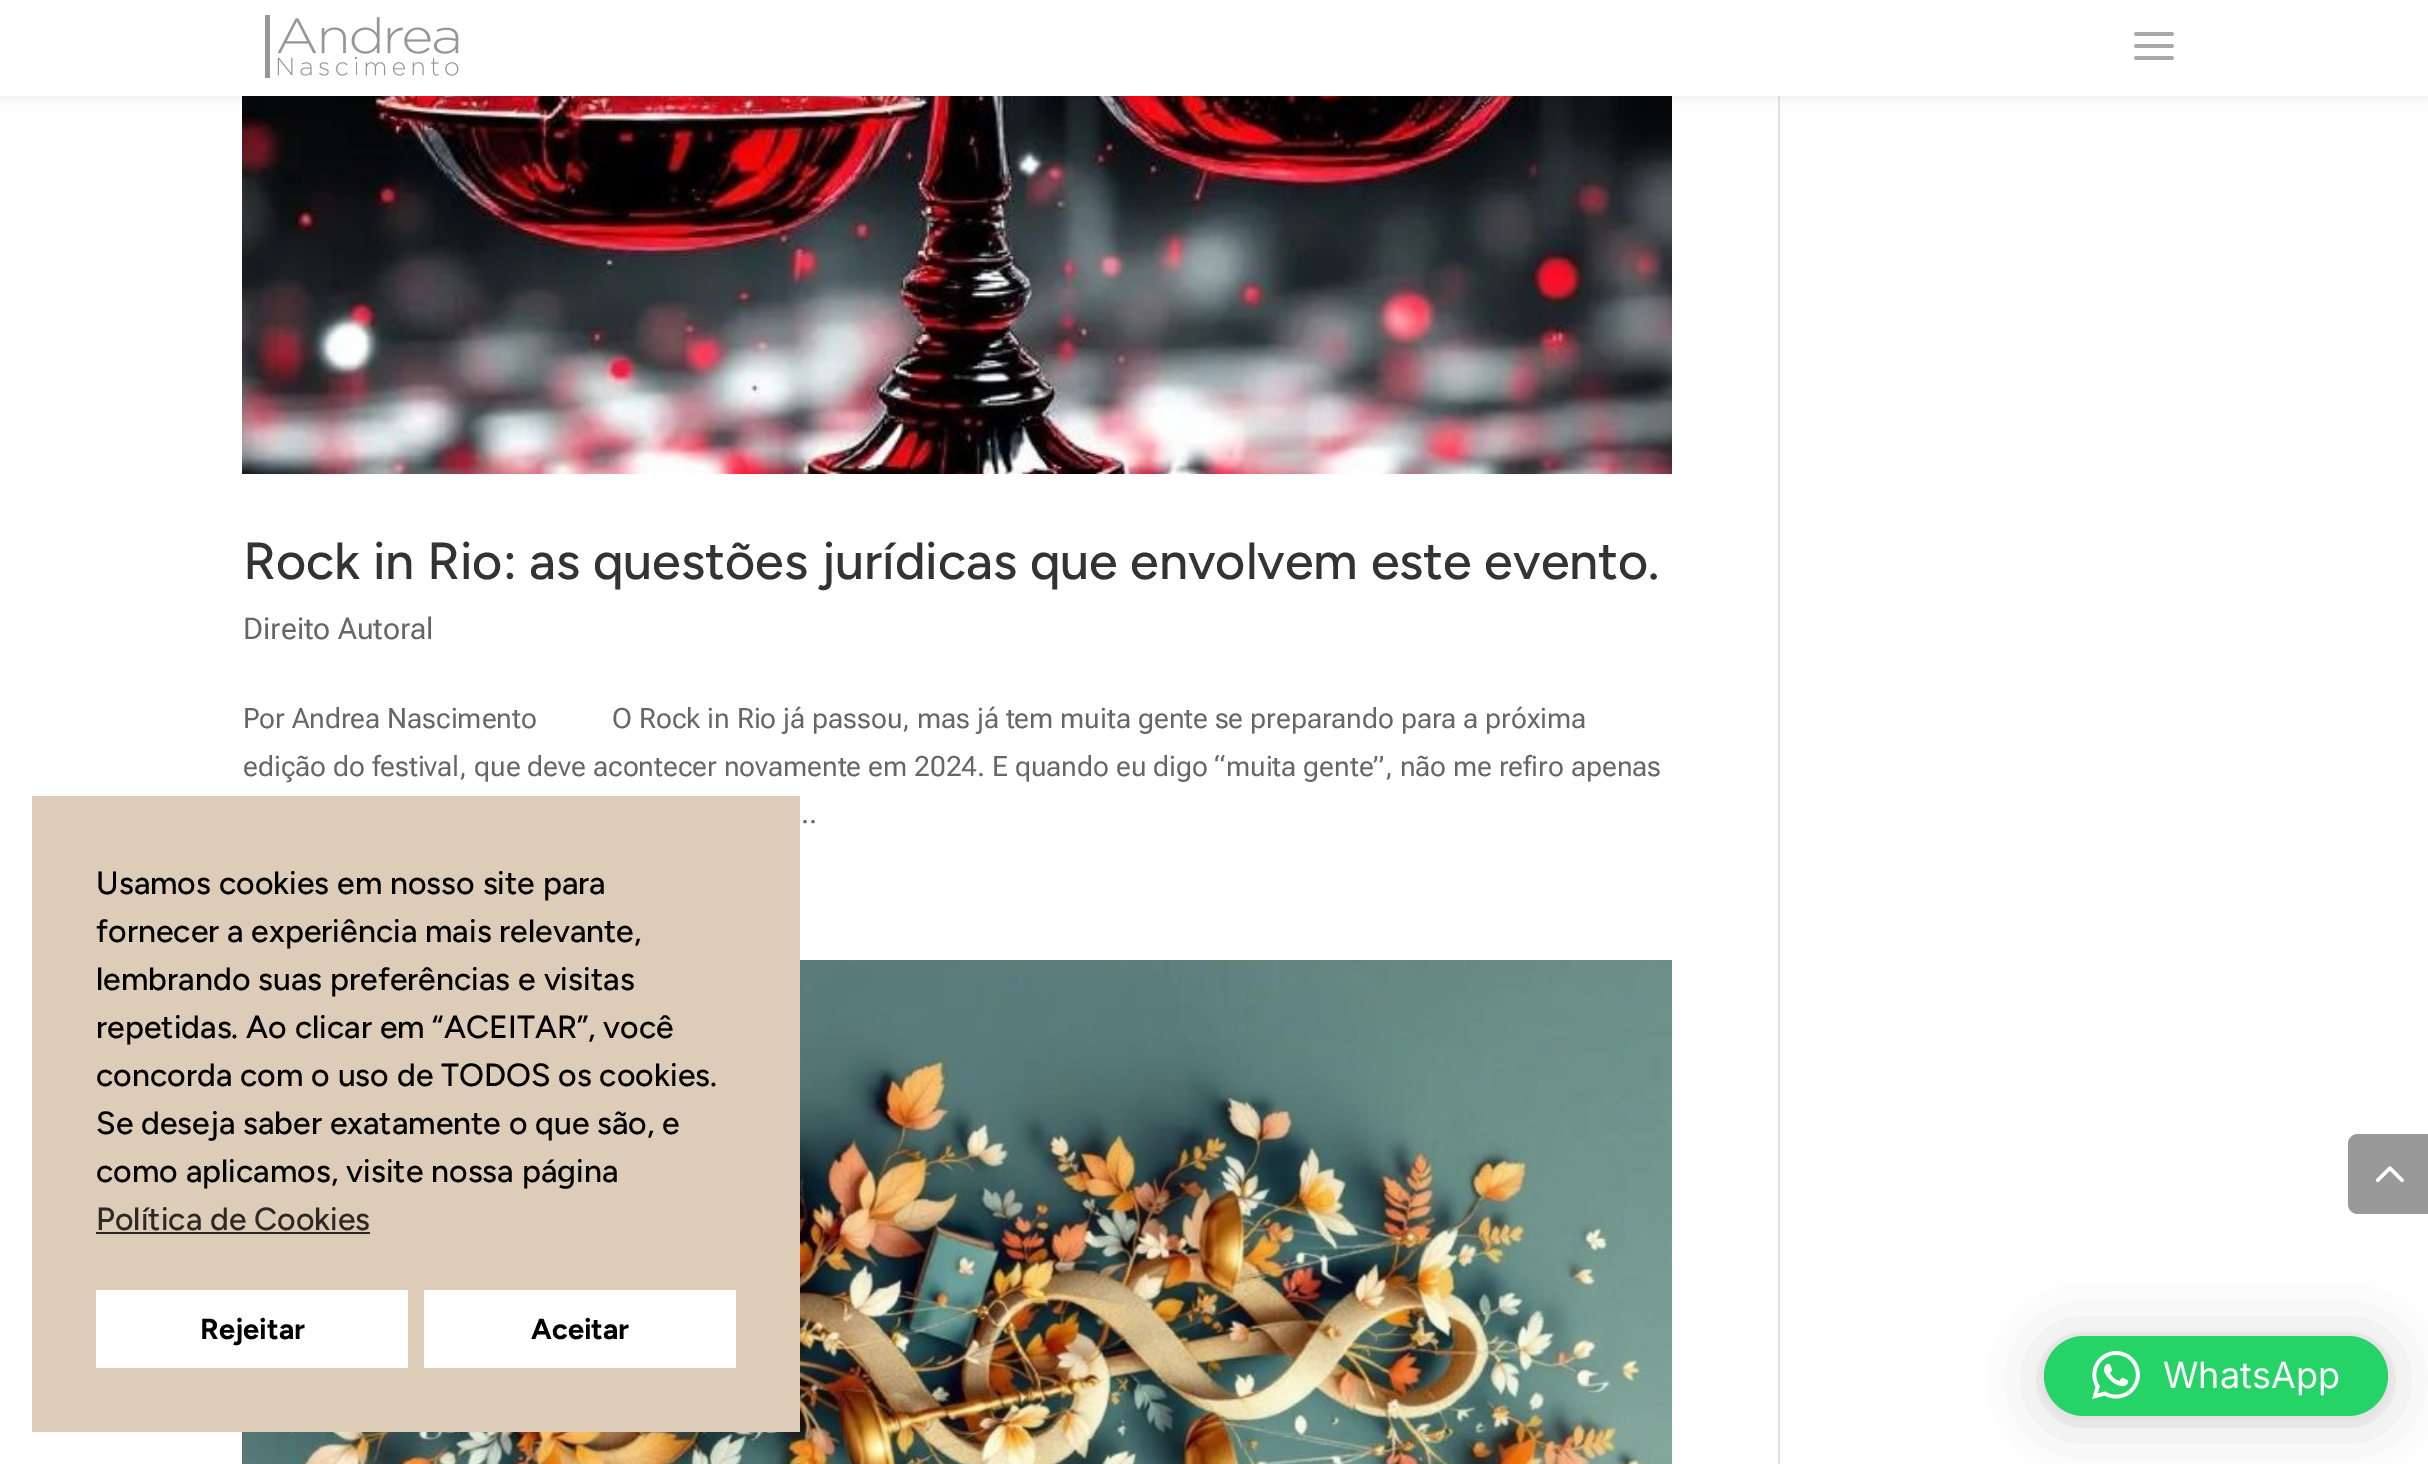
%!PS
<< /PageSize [2428 1464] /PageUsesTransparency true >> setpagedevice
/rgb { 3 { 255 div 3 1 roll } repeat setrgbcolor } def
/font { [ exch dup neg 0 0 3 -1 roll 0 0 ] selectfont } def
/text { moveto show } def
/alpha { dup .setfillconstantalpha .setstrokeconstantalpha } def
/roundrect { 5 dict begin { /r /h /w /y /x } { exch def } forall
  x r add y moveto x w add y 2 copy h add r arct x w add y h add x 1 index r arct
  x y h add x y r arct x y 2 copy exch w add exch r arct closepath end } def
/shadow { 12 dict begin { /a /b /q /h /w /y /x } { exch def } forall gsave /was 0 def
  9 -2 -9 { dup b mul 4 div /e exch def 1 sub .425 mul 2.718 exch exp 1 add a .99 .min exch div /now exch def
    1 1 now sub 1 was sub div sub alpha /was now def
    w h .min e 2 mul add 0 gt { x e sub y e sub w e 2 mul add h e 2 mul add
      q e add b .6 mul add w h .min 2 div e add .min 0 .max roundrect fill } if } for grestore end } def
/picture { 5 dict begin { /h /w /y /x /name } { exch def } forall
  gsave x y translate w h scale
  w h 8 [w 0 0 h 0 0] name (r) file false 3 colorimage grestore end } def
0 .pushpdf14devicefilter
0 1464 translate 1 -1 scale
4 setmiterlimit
255 255 255 rgb
0 0 2428 1464 rectfill
(img_03.rgb) 242 96 1430 378 picture
226 226 226 rgb
1778 96 2 1368 rectfill
0 0 0 rgb
0 0 2428 96 0 7 0.1 shadow
255 255 255 rgb
0 0 2428 96 rectfill
(img_01.rgb) 265 15 194 63 picture
(img_02.rgb) 2134 32 40 28 picture
(img_04.rgb) 242 960 1430 504 picture
221 204 184 rgb
32 796 768 636 rectfill
44 41 37 rgb
96 1232 274 2 rectfill
255 255 255 rgb
96 1290 312 78 rectfill
424 1290 312 78 rectfill
153 153 153 rgb
2358 1134 moveto 70 0 rlineto 0 80 rlineto -70 0 rlineto -5.5 0 -10 -4.5 -10 -10 rcurveto 0 -60 rlineto 0 -5.5 4.5 -10 10 -10 rcurveto closepath fill
(img_05.rgb) 2375 1166 29 17 picture
0 0 0 rgb
2044 1340 344 80 40 32 0.16 shadow
2044 1338 344 80 40 6 0.06 shadow
37 211 102 rgb
2044 1336 344 80 40 roundrect fill
(img_06.rgb) 2092 1351 48 48 picture
/Figtree-Light 52 font
51 51 51 rgb
(Rock in Rio: as questões jurídicas que envolvem este evento.) 243 579 text
/RobotoFlex-Regular 30 font
102 102 102 rgb
(Direito Autoral) 243 639 text
/RobotoFlex-Regular 28 font
(Por Andrea Nascimento           O Rock in Rio já passou, mas já tem muita gente se preparando para a próxima) 243 728 text
(edição do festival, que deve acontecer novamente em 2024. E quando eu digo “muita gente”, não me refiro apenas) 243 776 text
(..) 801 823 text
/Figtree-Light 32 font
0 0 0 rgb
(Usamos cookies em nosso site para) 96 894 text
(fornecer a experiência mais relevante,) 96 942 text
(lembrando suas preferências e visitas) 96 990 text
(repetidas. Ao clicar em “ACEITAR”, você) 96 1038 text
(concorda com o uso de TODOS os cookies.) 96 1086 text
(Se deseja saber exatamente o que são, e) 96 1134 text
(como aplicamos, visite nossa página) 96 1182 text
44 41 37 rgb
(Política de Cookies) 96 1230 text
/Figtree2-Light 29 font
0 0 0 rgb
(Rejeitar) 200 1339 text
(Aceitar) 531 1339 text
/Inter-Regular 36 font
255 255 255 rgb
(WhatsApp) 2163 1388 text
.poppdf14devicefilter showpage
